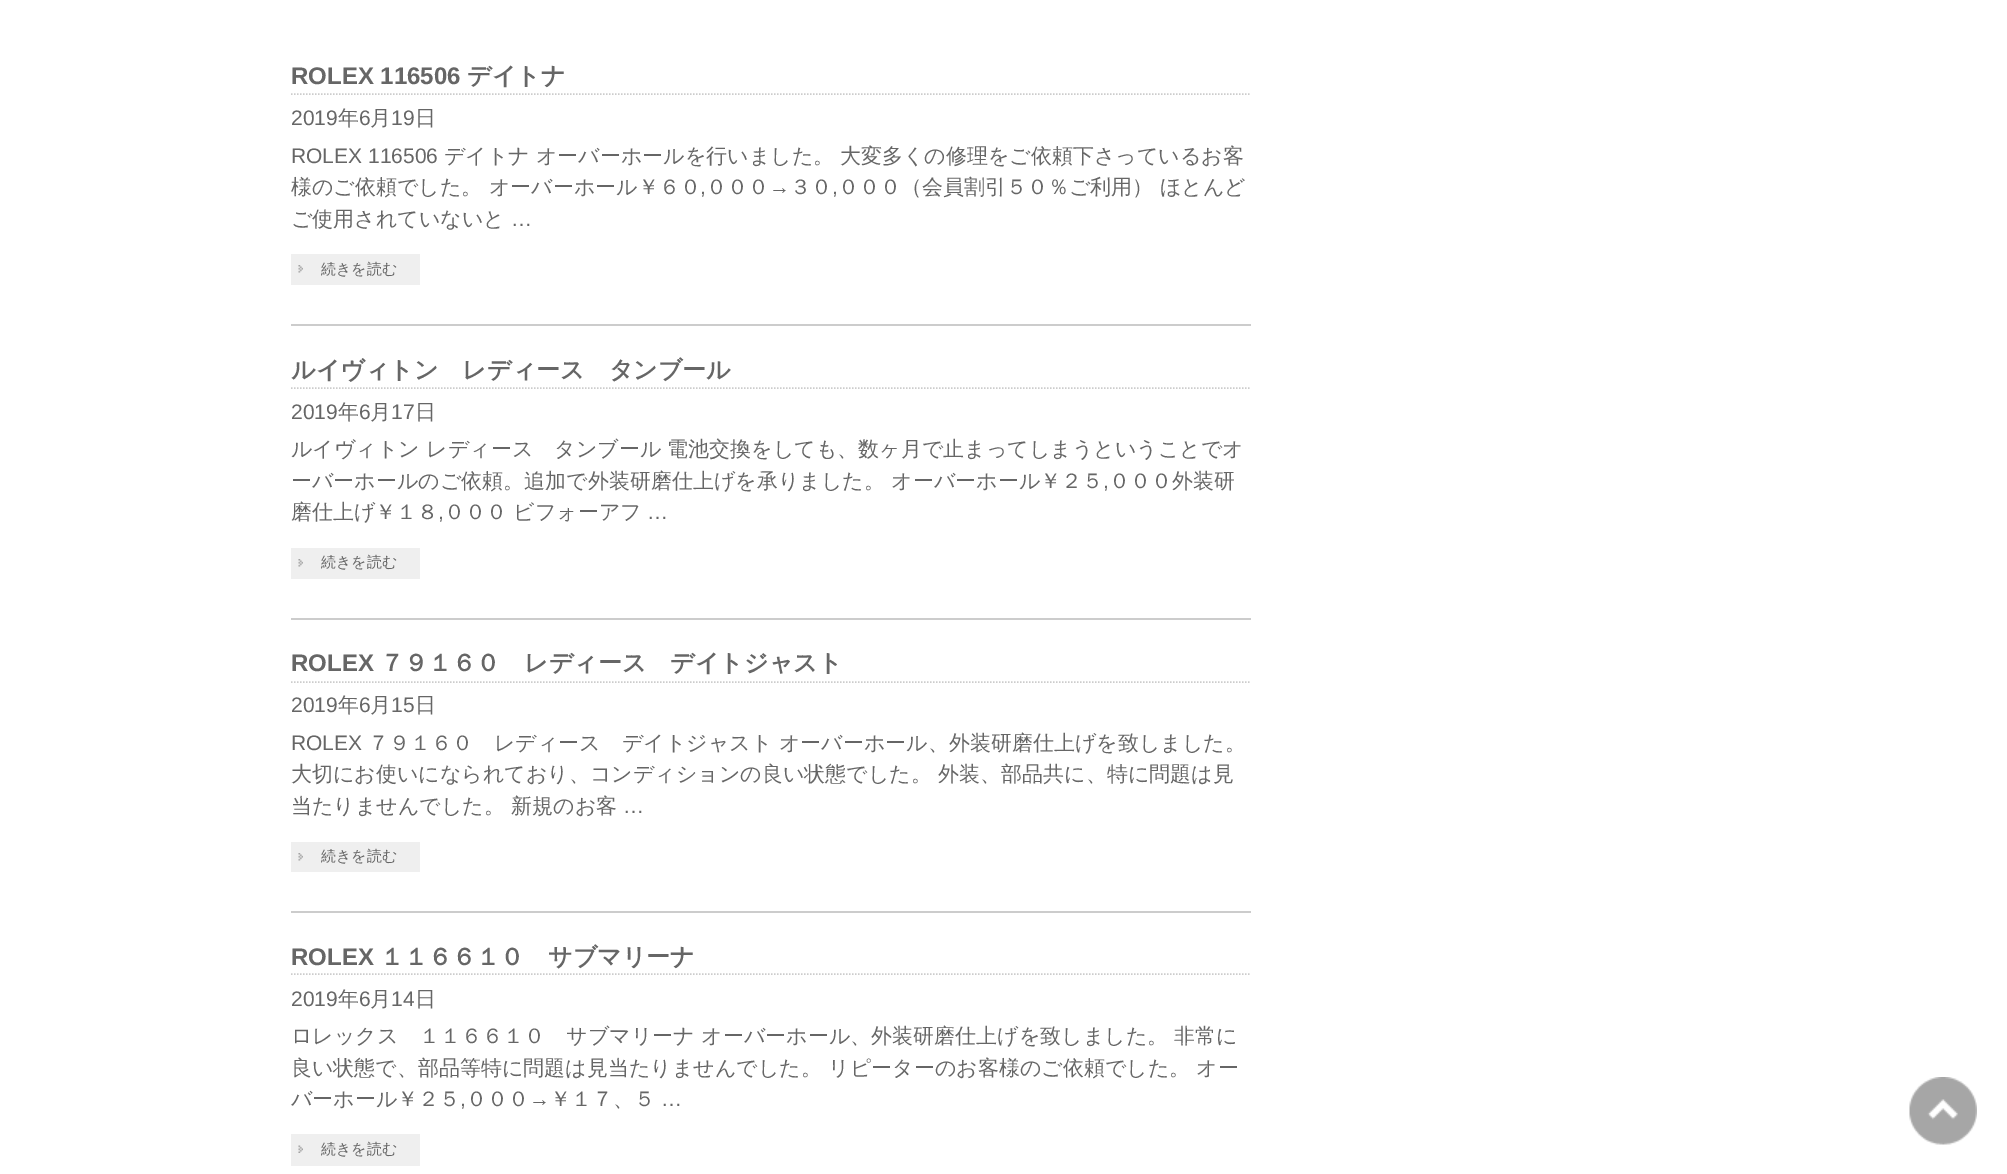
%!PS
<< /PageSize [2007 1174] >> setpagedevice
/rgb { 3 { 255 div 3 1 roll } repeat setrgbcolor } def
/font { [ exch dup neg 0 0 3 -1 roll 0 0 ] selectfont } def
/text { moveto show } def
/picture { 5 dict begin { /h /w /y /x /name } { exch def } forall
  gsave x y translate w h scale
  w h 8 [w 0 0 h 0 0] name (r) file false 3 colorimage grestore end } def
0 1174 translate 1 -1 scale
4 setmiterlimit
255 255 255 rgb
0 0 2007 1174 rectfill
204 204 204 rgb
291 324 960 2 rectfill
1.5 setlinewidth
[1.5 1.5] 0 setdash
291 94 moveto 960 0 rlineto stroke
239 239 239 rgb
291 254 129 31 rectfill
(img_01.rgb) 298 265 5 8 picture
204 204 204 rgb
291 618 960 2 rectfill
291 388 moveto 960 0 rlineto stroke
239 239 239 rgb
291 548 129 31 rectfill
(img_01.rgb) 298 559 5 8 picture
204 204 204 rgb
291 911 960 2 rectfill
291 682 moveto 960 0 rlineto stroke
239 239 239 rgb
291 842 129 30 rectfill
(img_01.rgb) 298 853 5 8 picture
204 204 204 rgb
291 974 moveto 960 0 rlineto stroke
239 239 239 rgb
291 1134 129 32 rectfill
(img_02.rgb) 298 1145 5 8 picture
(img_03.rgb) 1909 1077 68 68 picture
/LiberationSans-Bold 24 font
102 102 102 rgb
(ROLEX 116506) 291 84 text
/WenQuanYiZenHei-Bold 24 font
(デイトナ) 467 84 text
/LiberationSans-Regular 21 font
(2019) 291 125 text
/WenQuanYiZenHei-Medium 21 font
(年) 338 125 text
/LiberationSans-Regular 21 font
(6) 359 125 text
/WenQuanYiZenHei-Medium 21 font
(月) 370 125 text
/LiberationSans-Regular 21 font
(19) 391 125 text
/WenQuanYiZenHei-Medium 21 font
(日) 415 125 text
/LiberationSans-Regular 21 font
(ROLEX 116506) 291 163 text
/WenQuanYiZenHei-Medium 21 font
(デイトナ) 444 163 text
(オーバーホールを行いました。) 536 163 text
(大変多くの修理をご依頼下さっているお客) 840 163 text
(様のご依頼でした。 オーバーホール￥６０) 291 194 text
(０００) 706 194 text
/LiberationSans-Regular 21 font
(→) 769 194 text
/WenQuanYiZenHei-Medium 21 font
(３０) 790 194 text
(０００（会員割引５０％ご利用） ほとんど) 838 194 text
/LiberationSans-Regular 21 font
(,) 700 194 text
(,) 832 194 text
/WenQuanYiZenHei-Medium 21 font
(ご使用されていないと) 291 226 text
/LiberationSans-Regular 21 font
(…) 511 226 text
/WenQuanYiZenHei-Medium 15 font
(続きを読む) 321 274 text
/WenQuanYiZenHei-Bold 24 font
(ルイヴィトン　レディース　タンブール) 291 378 text
/LiberationSans-Regular 21 font
(2019) 291 419 text
/WenQuanYiZenHei-Medium 21 font
(年) 338 419 text
/LiberationSans-Regular 21 font
(6) 359 419 text
/WenQuanYiZenHei-Medium 21 font
(月) 370 419 text
/LiberationSans-Regular 21 font
(17) 391 419 text
/WenQuanYiZenHei-Medium 21 font
(日) 415 419 text
(ルイヴィトン レディース　タンブール 電池交換をしても、数ヶ月で止まってしまうということでオ) 291 456 text
(ーバーホールのご依頼。追加で外装研磨仕上げを承りました。 オーバーホール￥２５) 291 488 text
/LiberationSans-Regular 21 font
(,) 1103 488 text
/WenQuanYiZenHei-Medium 21 font
(０００外装研) 1109 488 text
(磨仕上げ￥１８) 291 519 text
/LiberationSans-Regular 21 font
(,) 438 519 text
/WenQuanYiZenHei-Medium 21 font
(０００ ビフォーアフ) 444 519 text
/LiberationSans-Regular 21 font
(…) 647 519 text
/WenQuanYiZenHei-Medium 15 font
(続きを読む) 321 567 text
/LiberationSans-Bold 24 font
(ROLEX) 291 671 text
/WenQuanYiZenHei-Bold 24 font
(７９１６０　レディース　デイトジャスト) 380 671 text
/LiberationSans-Regular 21 font
(2019) 291 712 text
/WenQuanYiZenHei-Medium 21 font
(年) 338 712 text
/LiberationSans-Regular 21 font
(6) 359 712 text
/WenQuanYiZenHei-Medium 21 font
(月) 370 712 text
/LiberationSans-Regular 21 font
(15) 391 712 text
/WenQuanYiZenHei-Medium 21 font
(日) 415 712 text
/LiberationSans-Regular 21 font
(ROLEX) 291 750 text
/WenQuanYiZenHei-Medium 21 font
(７９１６０　レディース　デイトジャスト オーバーホール、外装研磨仕上げを致しました。) 368 750 text
(大切にお使いになられており、コンディションの良い状態でした。 外装、部品共に、特に問題は見) 291 781 text
(当たりませんでした。 新規のお客) 291 813 text
/LiberationSans-Regular 21 font
(…) 623 813 text
/WenQuanYiZenHei-Medium 15 font
(続きを読む) 321 861 text
/LiberationSans-Bold 24 font
(ROLEX) 291 965 text
/WenQuanYiZenHei-Bold 24 font
(１１６６１０　サブマリーナ) 380 965 text
/LiberationSans-Regular 21 font
(2019) 291 1006 text
/WenQuanYiZenHei-Medium 21 font
(年) 338 1006 text
/LiberationSans-Regular 21 font
(6) 359 1006 text
/WenQuanYiZenHei-Medium 21 font
(月) 370 1006 text
/LiberationSans-Regular 21 font
(14) 391 1006 text
/WenQuanYiZenHei-Medium 21 font
(日) 415 1006 text
(ロレックス　１１６６１０　サブマリーナ オーバーホール、外装研磨仕上げを致しました。 非常に) 291 1043 text
(良い状態で、部品等特に問題は見当たりませんでした。 リピーターのお客様のご依頼でした。 オー) 291 1075 text
(バーホール￥２５) 291 1106 text
(０００) 466 1106 text
/LiberationSans-Regular 21 font
(→) 529 1106 text
/WenQuanYiZenHei-Medium 21 font
(￥１７、５) 550 1106 text
/LiberationSans-Regular 21 font
(,) 460 1106 text
(…) 661 1106 text
/WenQuanYiZenHei-Medium 15 font
(続きを読む) 321 1154 text
showpage
